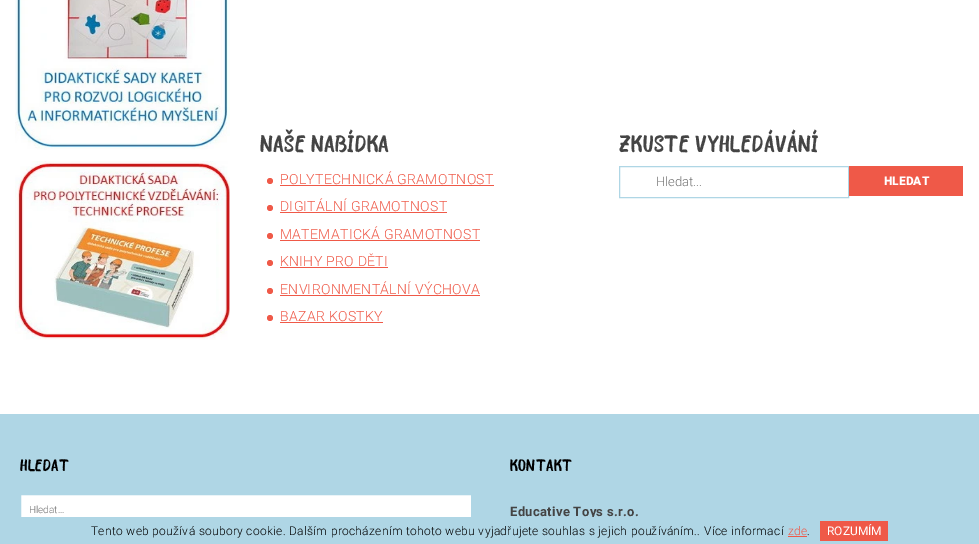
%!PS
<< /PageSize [979 544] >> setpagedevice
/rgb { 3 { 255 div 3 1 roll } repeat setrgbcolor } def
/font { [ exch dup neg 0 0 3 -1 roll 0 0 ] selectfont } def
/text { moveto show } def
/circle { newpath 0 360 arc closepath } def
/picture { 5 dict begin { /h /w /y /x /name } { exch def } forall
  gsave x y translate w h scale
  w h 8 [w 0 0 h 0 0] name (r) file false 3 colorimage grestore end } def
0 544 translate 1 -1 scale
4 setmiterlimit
255 255 255 rgb
0 0 979 544 rectfill
(img_01.rgb) 15 0 215 150 picture
(img_02.rgb) 15 161 215 179 picture
239 89 72 rgb
270 181 3 circle fill
280 185 214 1 rectfill
270 208 3 circle fill
280 212 167 1 rectfill
270 236 3 circle fill
280 240 200 1 rectfill
270 263 3 circle fill
280 267 108 1 rectfill
270 291 3 circle fill
280 295 200 1 rectfill
270 318 3 circle fill
280 322 103 1 rectfill
175 214 229 rgb
619.5 166.5 229 31 rectstroke
239 89 72 rgb
849 166 114 30 rectfill
175 214 229 rgb
0 414 979 103 rectfill
255 255 255 rgb
21 495 450 22 rectfill
175 214 229 rgb
20.5 494.5 451 31 rectstroke
/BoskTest-Regular 23 font
68 68 68 rgb
260 152 moveto 0.32 0 (NAŠE NABÍDKA) ashow
/Roboto-Light 14 font
239 89 72 rgb
280 184 moveto 0.32 0 (POLYTECHNICKÁ GRAMOTNOST) ashow
280 211 moveto 0.32 0 (DIGITÁLNÍ GRAMOTNOST) ashow
280 239 moveto 0.32 0 (MATEMATICKÁ GRAMOTNOST) ashow
280 266 moveto 0.32 0 (KNIHY PRO DĚTI) ashow
280 294 moveto 0.32 0 (ENVIRONMENTÁLNÍ VÝCHOVA) ashow
280 321 moveto 0.32 0 (BAZAR KOSTKY) ashow
/BoskTest-Regular 23 font
68 68 68 rgb
619 152 moveto 0.32 0 (ZKUSTE VYHLEDÁVÁNÍ) ashow
/Roboto-Light 13 font
117 117 117 rgb
(Hledat...) 656 186 text
/Roboto-Black 12 font
255 255 255 rgb
(HLEDAT) 884 185 text
/BoskTest-Regular 16 font
0 0 0 rgb
20 471 moveto 0.32 0 (HLEDAT) ashow
/Roboto-Light 10 font
117 117 117 rgb
(Hledat...) 29 513 text
/BoskTest-Regular 16 font
0 0 0 rgb
510 471 moveto 0.32 0 (KONTAKT) ashow
/Roboto-Bold 13 font
68 68 68 rgb
510 516 moveto 0.32 0 (Educative Toys s.r.o.) ashow
175 214 229 rgb
0 517 979 27 rectfill
/Roboto-Light 12 font
0 0 0 rgb
91 535 moveto 0.32 0 (Tento web používá soubory cookie. Dalším procházením tohoto webu vyjadřujete souhlas s jejich používáním.. Více informací) ashow
239 89 72 rgb
788 535 moveto 0.32 0 (zde) ashow
788 536 19 1 rectfill
0 0 0 rgb
807 535 moveto 0.32 0 (.) ashow
239 89 72 rgb
820 521 68 20 rectfill
/Roboto-Regular 12 font
255 255 255 rgb
(ROZUMÍM) 827 535 text
showpage
